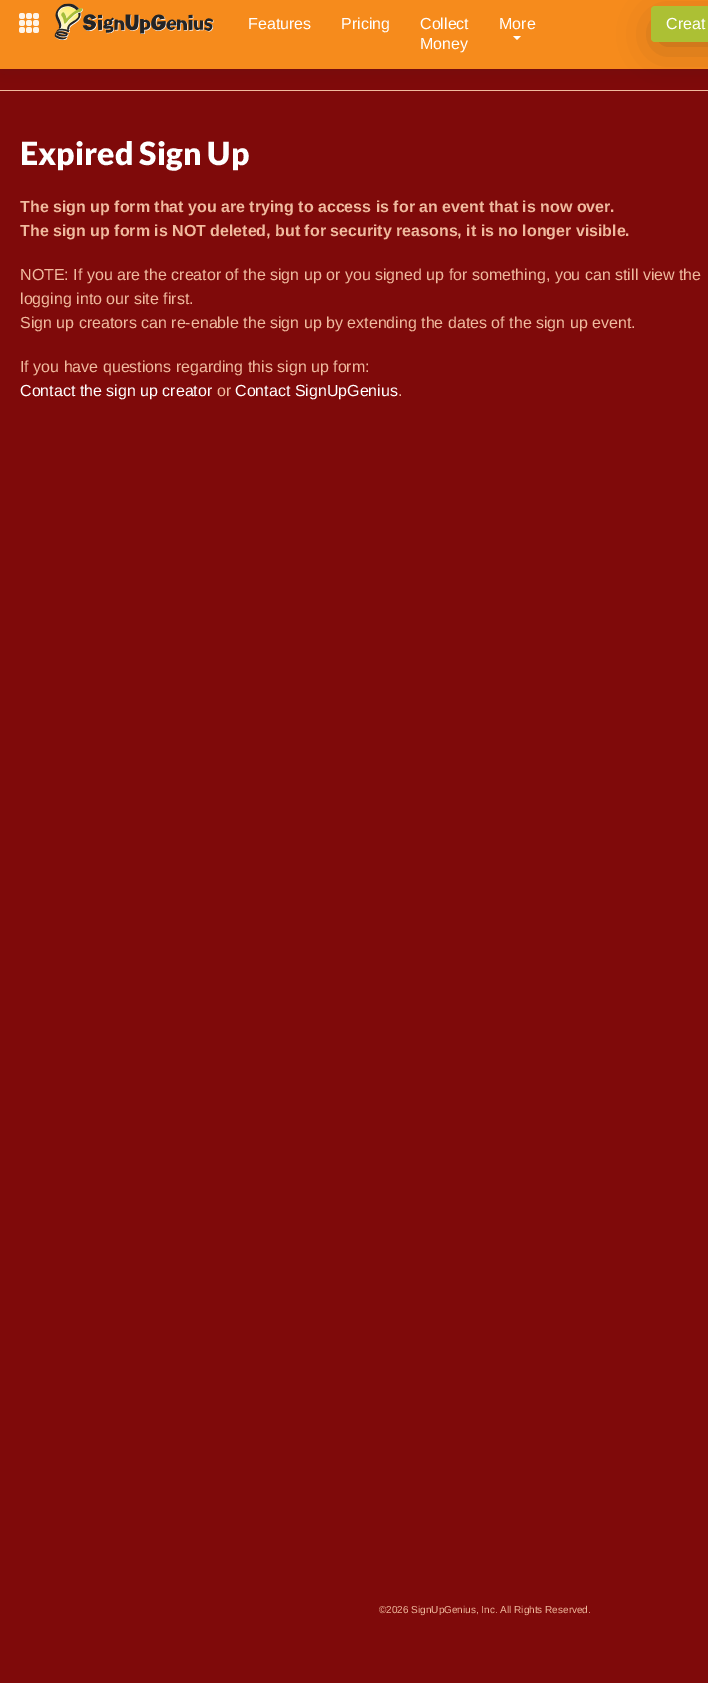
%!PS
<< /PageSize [708 1683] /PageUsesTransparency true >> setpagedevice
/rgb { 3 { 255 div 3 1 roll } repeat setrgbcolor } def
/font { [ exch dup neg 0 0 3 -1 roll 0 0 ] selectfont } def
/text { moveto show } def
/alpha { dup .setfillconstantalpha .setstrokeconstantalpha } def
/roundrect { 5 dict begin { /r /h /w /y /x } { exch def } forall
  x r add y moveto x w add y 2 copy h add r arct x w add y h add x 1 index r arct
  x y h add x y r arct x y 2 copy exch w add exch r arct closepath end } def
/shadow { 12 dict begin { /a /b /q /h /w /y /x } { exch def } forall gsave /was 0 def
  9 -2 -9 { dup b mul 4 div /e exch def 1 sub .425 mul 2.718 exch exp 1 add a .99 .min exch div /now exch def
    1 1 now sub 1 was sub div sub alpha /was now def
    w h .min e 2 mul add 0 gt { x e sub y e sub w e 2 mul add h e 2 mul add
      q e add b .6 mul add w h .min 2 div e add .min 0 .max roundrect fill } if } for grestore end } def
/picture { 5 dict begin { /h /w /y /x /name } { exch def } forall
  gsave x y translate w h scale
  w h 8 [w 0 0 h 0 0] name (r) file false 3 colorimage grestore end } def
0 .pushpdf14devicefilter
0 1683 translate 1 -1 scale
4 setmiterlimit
127 10 10 rgb
0 0 708 1683 rectfill
240 186 158 rgb
0 90 708 1 rectfill
34 34 34 rgb
2 0 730 69 0 8 0.15 shadow
246 139 28 rgb
0 0 708 69 rectfill
(img_01.rgb) 19 13 20 20 picture
(img_02.rgb) 54 3 160 37 picture
255 255 255 rgb
513 36 moveto 8 0 rlineto -4 4 rlineto closepath fill
34 34 34 rgb
661 26 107 16 0 20 0.35 shadow
172 192 52 rgb
651 6 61 36 4 roundrect fill
/LiberationSans-Regular 16 font
255 255 255 rgb
(Features) 248 29 text
(Pricing) 341 29 text
(Collect) 420 29 text
(Money) 420 49 text
(More) 499 29 text
(Creat) 666 29 text
/Lato-Black 32 font
(Expired Sign Up) 20 165 text
/LiberationSans-Bold 16 font
240 186 158 rgb
(The sign up form that you are trying to access is for an event that is now over.) 20 212 text
(The sign up form is NOT deleted, but for security reasons, it is no longer visible.) 20 236 text
/LiberationSans-Regular 16 font
(NOTE: If you are the creator of the sign up or you signed up for something, you can still view the) 20 280 text
(logging into our site first.) 20 304 text
(Sign up creators can re-enable the sign up by extending the dates of the sign up event.) 20 328 text
(If you have questions regarding this sign up form:) 20 372 text
255 255 255 rgb
(Contact the sign up creator) 20 396 text
240 186 158 rgb
(or) 217 396 text
255 255 255 rgb
(Contact SignUpGenius) 235 396 text
240 186 158 rgb
(.) 398 396 text
/LiberationSans-Regular 10 font
(©2026 SignUpGenius, Inc. All Rights Reserved.) 379 1613 text
.poppdf14devicefilter showpage
